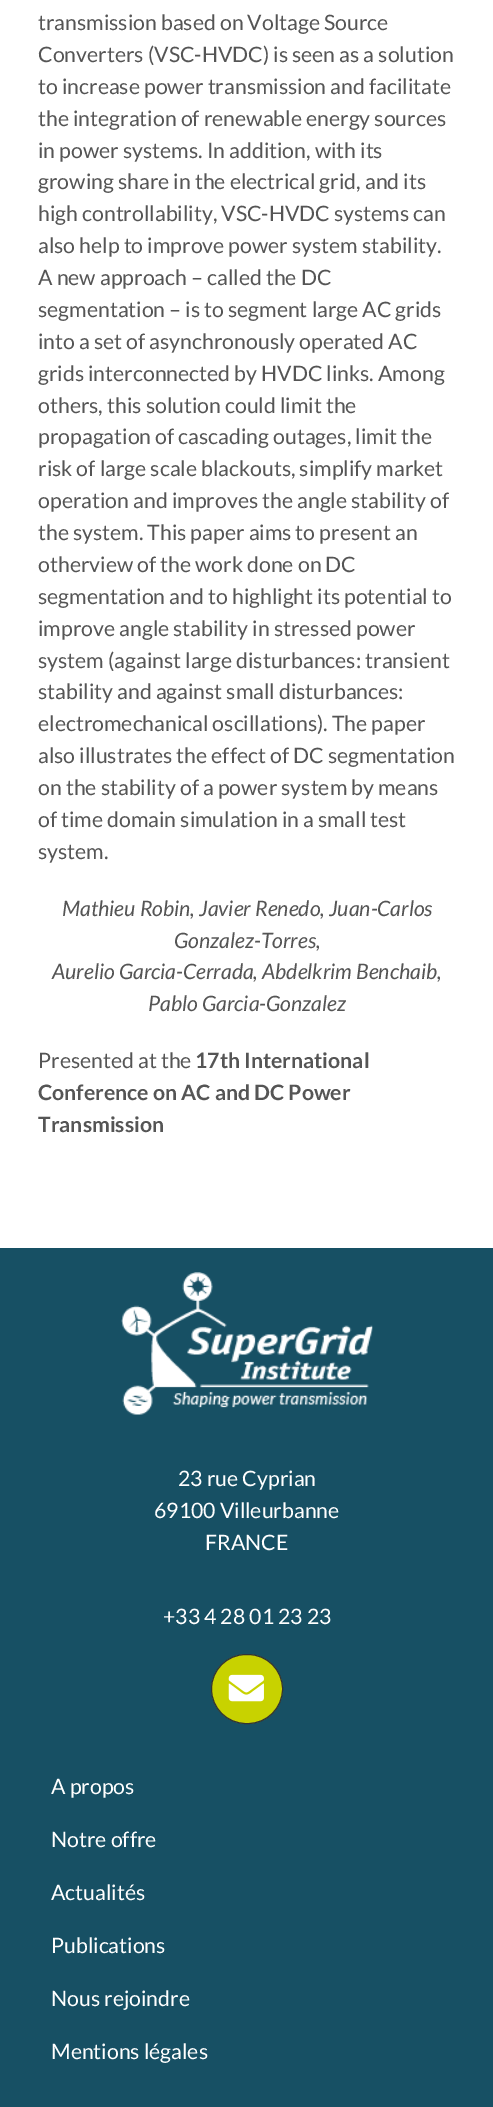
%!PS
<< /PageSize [493 2107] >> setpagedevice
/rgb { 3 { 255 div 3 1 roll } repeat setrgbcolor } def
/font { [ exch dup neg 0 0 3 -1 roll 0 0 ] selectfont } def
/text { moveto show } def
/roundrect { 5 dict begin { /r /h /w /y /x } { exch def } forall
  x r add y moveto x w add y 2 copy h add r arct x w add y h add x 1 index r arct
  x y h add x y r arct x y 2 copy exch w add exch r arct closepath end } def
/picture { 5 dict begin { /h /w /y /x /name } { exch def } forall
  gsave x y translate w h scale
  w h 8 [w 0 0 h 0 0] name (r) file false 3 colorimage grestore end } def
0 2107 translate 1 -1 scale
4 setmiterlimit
255 255 255 rgb
0 0 493 2107 rectfill
23 80 100 rgb
0 1248 493 859 rectfill
(img_01.rgb) 121 1272 252 143 picture
200 210 0 rgb
211.5 1654.5 71 69 34.5 roundrect gsave fill grestore
51 51 51 rgb
stroke
(img_02.rgb) 228 1674 36 28 picture
/Lato-Regular 21.25 font
85 85 85 rgb
(transmission based on Voltage Source) 38 30 text
(Converters \(VSC-HVDC\) is seen as a solution) 38 62 text
(to increase power transmission and facilitate) 38 94 text
(the integration of renewable energy sources) 38 126 text
(in power systems. In addition, with its) 38 158 text
(growing share in the electrical grid, and its) 38 189 text
(high controllability, VSC-HVDC systems can) 38 221 text
(also help to improve power system stability.) 38 253 text
(A new approach – called the DC) 38 285 text
(segmentation – is to segment large AC grids) 38 317 text
(into a set of asynchronously operated AC) 38 349 text
(grids interconnected by HVDC links. Among) 38 381 text
(others, this solution could limit the) 38 413 text
(propagation of cascading outages, limit the) 38 444 text
(risk of large scale blackouts, simplify market) 38 476 text
(operation and improves the angle stability of) 38 508 text
(the system. This paper aims to present an) 38 540 text
(otherview of the work done on DC) 38 572 text
(segmentation and to highlight its potential to) 38 604 text
(improve angle stability in stressed power) 38 636 text
(system \(against large disturbances: transient) 38 668 text
(stability and against small disturbances:) 38 699 text
(electromechanical oscillations\). The paper) 38 731 text
(also illustrates the effect of DC segmentation) 38 763 text
(on the stability of a power system by means) 38 795 text
(of time domain simulation in a small test) 38 827 text
(system.) 38 859 text
/Lato-Italic 21.25 font
(Mathieu Robin, Javier Renedo, Juan-Carlos) 62 916 text
(Gonzalez-Torres,) 174 948 text
(Aurelio Garcia-Cerrada, Abdelkrim Benchaib,) 52 979 text
(Pablo Garcia-Gonzalez) 148 1011 text
/Lato-Regular 21.25 font
(Presented at the) 38 1068 text
/Lato-Bold 21.25 font
(17th International) 195 1068 text
(Conference on AC and DC Power) 38 1100 text
(Transmission) 38 1132 text
/Lato-Regular 21.25 font
255 255 255 rgb
(23 rue Cyprian) 178 1486 text
(69100 Villeurbanne) 154 1518 text
(FRANCE) 205 1550 text
(+33 4 28 01 23 23) 163 1624 text
(A propos) 51 1794 text
(Notre offre) 51 1847 text
(Actualités) 51 1900 text
(Publications) 51 1953 text
(Nous rejoindre) 51 2006 text
(Mentions légales) 51 2059 text
showpage
